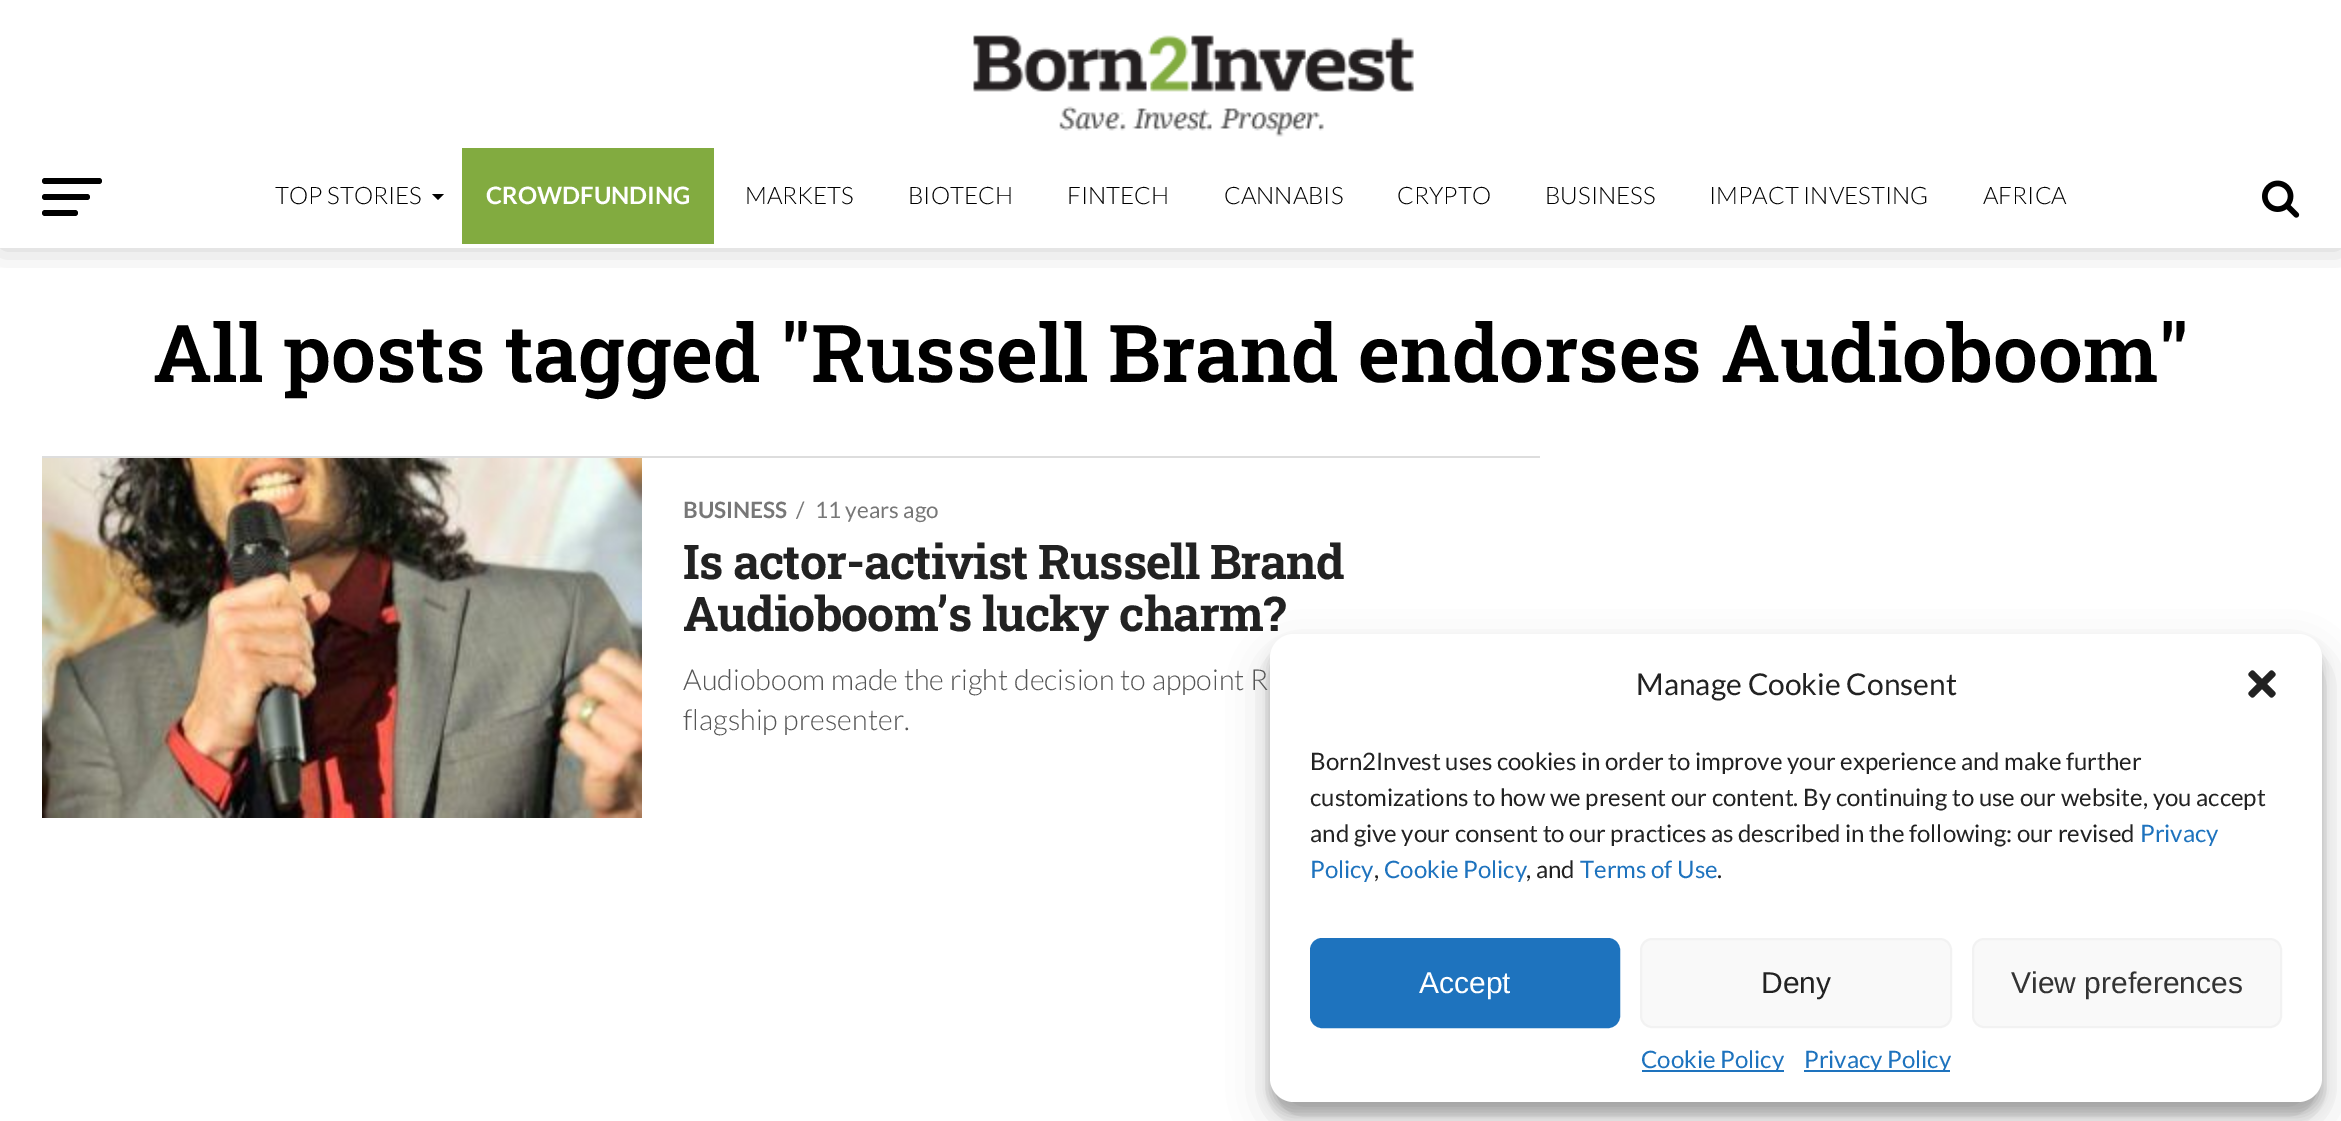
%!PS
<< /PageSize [2341 1121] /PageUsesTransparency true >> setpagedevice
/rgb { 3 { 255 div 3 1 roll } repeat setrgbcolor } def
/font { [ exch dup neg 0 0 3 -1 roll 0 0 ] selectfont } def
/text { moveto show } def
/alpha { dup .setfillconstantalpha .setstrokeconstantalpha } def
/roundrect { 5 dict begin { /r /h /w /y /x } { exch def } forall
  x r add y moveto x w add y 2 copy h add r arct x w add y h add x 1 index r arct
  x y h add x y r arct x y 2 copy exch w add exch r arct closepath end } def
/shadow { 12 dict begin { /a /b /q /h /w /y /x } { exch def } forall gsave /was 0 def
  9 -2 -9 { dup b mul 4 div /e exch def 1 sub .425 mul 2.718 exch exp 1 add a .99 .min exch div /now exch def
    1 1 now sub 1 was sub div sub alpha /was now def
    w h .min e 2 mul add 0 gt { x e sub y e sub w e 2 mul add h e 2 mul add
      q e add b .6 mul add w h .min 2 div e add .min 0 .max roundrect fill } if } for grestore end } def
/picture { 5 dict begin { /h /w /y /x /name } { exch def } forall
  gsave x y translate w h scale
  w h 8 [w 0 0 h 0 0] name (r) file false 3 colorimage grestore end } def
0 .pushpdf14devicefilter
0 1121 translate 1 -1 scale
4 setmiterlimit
255 255 255 rgb
0 0 2341 1121 rectfill
gsave
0 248 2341 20 rectclip
0 0 0 rgb
0 148 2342 100 0 16 0.2 shadow
grestore
0 122 2341 26 rectfill
(img_01.rgb) 973 35 441 102 picture
0 0 0 rgb
42 178 60 6 3 roundrect fill
42 194 48 6 3 roundrect fill
42 210 36 6 3 roundrect fill
432 194 moveto 12 0 rlineto -6 6 rlineto closepath fill
130 171 64 rgb
462 148 252 96 rectfill
(img_02.rgb) 2262 180 38 38 picture
221 221 221 rgb
42 456 1498 2 rectfill
(img_03.rgb) 42 458 600 360 picture
0 0 0 rgb
1270 646 1052 468 24 6 0.23 shadow
1270 654 1052 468 24 20 0.19 shadow
/Lato-Light 24 font
(TOP STORIES) 275 204 text
/Lato-Bold 24 font
255 255 255 rgb
(CROWDFUNDING) 486 204 text
/Lato-Light 24 font
0 0 0 rgb
(MARKETS) 745 204 text
(BIOTECH) 908 204 text
(FINTECH) 1067 204 text
(CANNABIS) 1224 204 text
(CRYPTO) 1397 204 text
(BUSINESS) 1545 204 text
(IMPACT INVESTING) 1709 204 text
(AFRICA) 1983 204 text
/RobotoSlab-SemiBold 80 font
(All posts tagged "Russell Brand endorses Audioboom") 153 382 text
/Lato-Bold 22.5 font
119 119 119 rgb
(BUSINESS) 683 518 text
/Lato-Regular 22.5 font
(/) 796 518 text
(11 years ago) 815 518 text
/RobotoSlab-Bold 48 font
34 34 34 rgb
683 579 moveto -0.95 0 (Is actor-activist Russell Brand) ashow
683 631 moveto -0.95 0 (Audioboom’s lucky charm?) ashow
/Lato-Light 28.8 font
85 85 85 rgb
(Audioboom made the right decision to appoint R) 683 690 text
(flagship presenter.) 683 730 text
255 255 255 rgb
1270 634 1052 468 24 roundrect fill
/Lato-Regular 30 font
34 34 34 rgb
(Manage Cookie Consent) 1636 695 text
(img_04.rgb) 2248 670 28 28 picture
/Lato-Regular 24 font
(Born2Invest uses cookies in order to improve your experience and make further) 1310 770 text
(customizations to how we present our content. By continuing to use our website, you accept) 1310 806 text
(and give your consent to our practices as described in the following: our revised) 1310 842 text
30 115 190 rgb
(Privacy) 2140 842 text
(Policy) 1310 878 text
34 34 34 rgb
(,) 1374 878 text
30 115 190 rgb
(Cookie Policy) 1384 878 text
34 34 34 rgb
(, and) 1526 878 text
30 115 190 rgb
(Terms of Use) 1580 878 text
34 34 34 rgb
(.) 1717 878 text
30 115 190 rgb
1311 939 308 88 11 roundrect gsave fill grestore
2 setlinewidth
stroke
/LiberationSans-Regular 30 font
255 255 255 rgb
(Accept) 1419 993 text
249 249 249 rgb
1641 939 310 88 11 roundrect gsave fill grestore
242 242 242 rgb
stroke
34 34 34 rgb
(Deny) 1761 993 text
249 249 249 rgb
1973 939 308 88 11 roundrect gsave fill grestore
242 242 242 rgb
stroke
51 51 51 rgb
(View preferences) 2011 993 text
30 115 190 rgb
1642 1070 142 2 rectfill
/Lato-Regular 24 font
(Cookie Policy) 1641 1068 text
1804 1070 146 2 rectfill
(Privacy Policy) 1804 1068 text
.poppdf14devicefilter showpage
